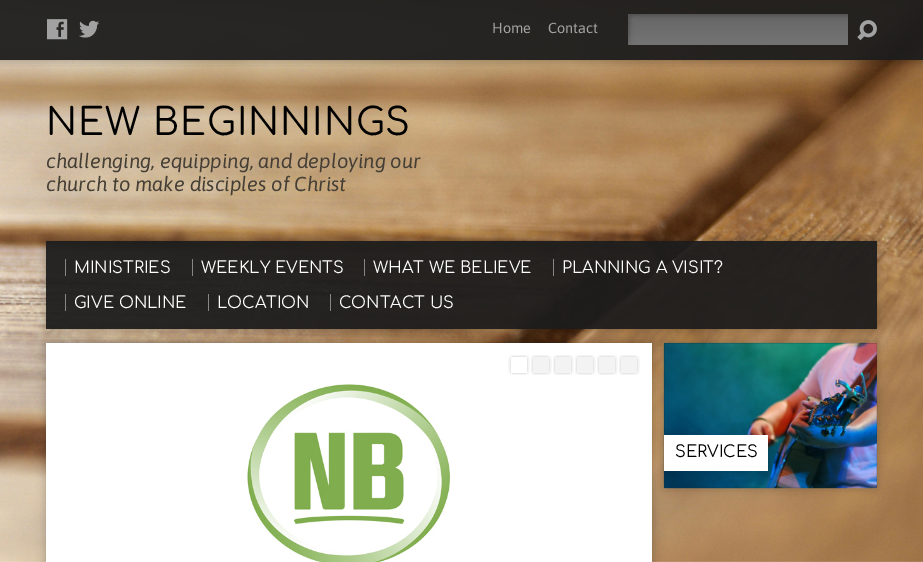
%!PS
<< /PageSize [923 562] /PageUsesTransparency true >> setpagedevice
/rgb { 3 { 255 div 3 1 roll } repeat setrgbcolor } def
/font { [ exch dup neg 0 0 3 -1 roll 0 0 ] selectfont } def
/text { moveto show } def
/alpha { dup .setfillconstantalpha .setstrokeconstantalpha } def
/roundrect { 5 dict begin { /r /h /w /y /x } { exch def } forall
  x r add y moveto x w add y 2 copy h add r arct x w add y h add x 1 index r arct
  x y h add x y r arct x y 2 copy exch w add exch r arct closepath end } def
/shadow { 12 dict begin { /a /b /q /h /w /y /x } { exch def } forall gsave /was 0 def
  9 -2 -9 { dup b mul 4 div /e exch def 1 sub .425 mul 2.718 exch exp 1 add a .99 .min exch div /now exch def
    1 1 now sub 1 was sub div sub alpha /was now def
    w h .min e 2 mul add 0 gt { x e sub y e sub w e 2 mul add h e 2 mul add
      q e add b .6 mul add w h .min 2 div e add .min 0 .max roundrect fill } if } for grestore end } def
/picture { 5 dict begin { /h /w /y /x /name } { exch def } forall
  gsave x y translate w h scale
  w h 8 [w 0 0 h 0 0] name (r) file false 3 colorimage grestore end } def
0 .pushpdf14devicefilter
0 562 translate 1 -1 scale
4 setmiterlimit
255 255 255 rgb
0 0 923 562 rectfill
(img_01.rgb) 0 0 923 562 picture
gsave
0 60 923 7 rectclip
0 0 0 rgb
0 0 923 60 0 5 0.25 shadow
grestore
0.94 alpha
28 28 28 rgb
0 0 923 60 rectfill
1 alpha
(img_02.rgb) 47 19 21 21 picture
(img_03.rgb) 79 20 20 18 picture
(img_04.rgb) 628 14 220 31 picture
(img_05.rgb) 857 20 20 21 picture
gsave
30 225 moveto 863 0 rlineto 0 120 rlineto -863 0 rlineto closepath 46 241 moveto 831 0 rlineto 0 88 rlineto -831 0 rlineto closepath eoclip newpath
0 0 0 rgb
46 241 831 88 0 5 0.25 shadow
grestore
0.94 alpha
46 241 831 88 rectfill
1 alpha
134 134 134 rgb
65 259 1 17 rectfill
192 259 1 17 rectfill
364 259 1 17 rectfill
553 259 1 17 rectfill
65 294 1 17 rectfill
208 294 1 17 rectfill
330 294 1 17 rectfill
0 0 0 rgb
46 343 606 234 0 5 0.25 shadow
(img_06.rgb) 46 343 606 219 picture
(img_07.rgb) 508 355 22 20 picture
(img_08.rgb) 531 355 21 20 picture
(img_08.rgb) 553 355 21 20 picture
(img_08.rgb) 575 355 21 20 picture
(img_08.rgb) 597 355 21 20 picture
(img_08.rgb) 619 355 21 20 picture
664 343 213 145 0 5 0.25 shadow
0.94 alpha
28 28 28 rgb
664 343 213 145 rectfill
1 alpha
(img_09.rgb) 663 342 214 147 picture
0 0 0 rgb
664 435 104 36 0 7 0.15 shadow
255 255 255 rgb
664 435 104 36 rectfill
/Asap-Regular 14.5 font
162 162 162 rgb
(Home) 492 33 text
(Contact) 548 33 text
/Comfortaa-Regular 37.5 font
0 0 0 rgb
46 135 moveto 1 0 (NEW BEGINNINGS) ashow
/Asap-Italic 20.2 font
68 62 53 rgb
(challenging, equipping, and deploying our) 46 168 text
(church to make disciples of Christ) 46 191 text
/Comfortaa-Regular 16.25 font
255 255 255 rgb
(MINISTRIES) 74 273 text
(WEEKLY EVENTS) 201 273 text
(WHAT WE BELIEVE) 373 273 text
(PLANNING A VISIT?) 562 273 text
(GIVE ONLINE) 74 308 text
(LOCATION) 217 308 text
(CONTACT US) 339 308 text
0 0 0 rgb
(SERVICES) 675 457 text
.poppdf14devicefilter showpage
